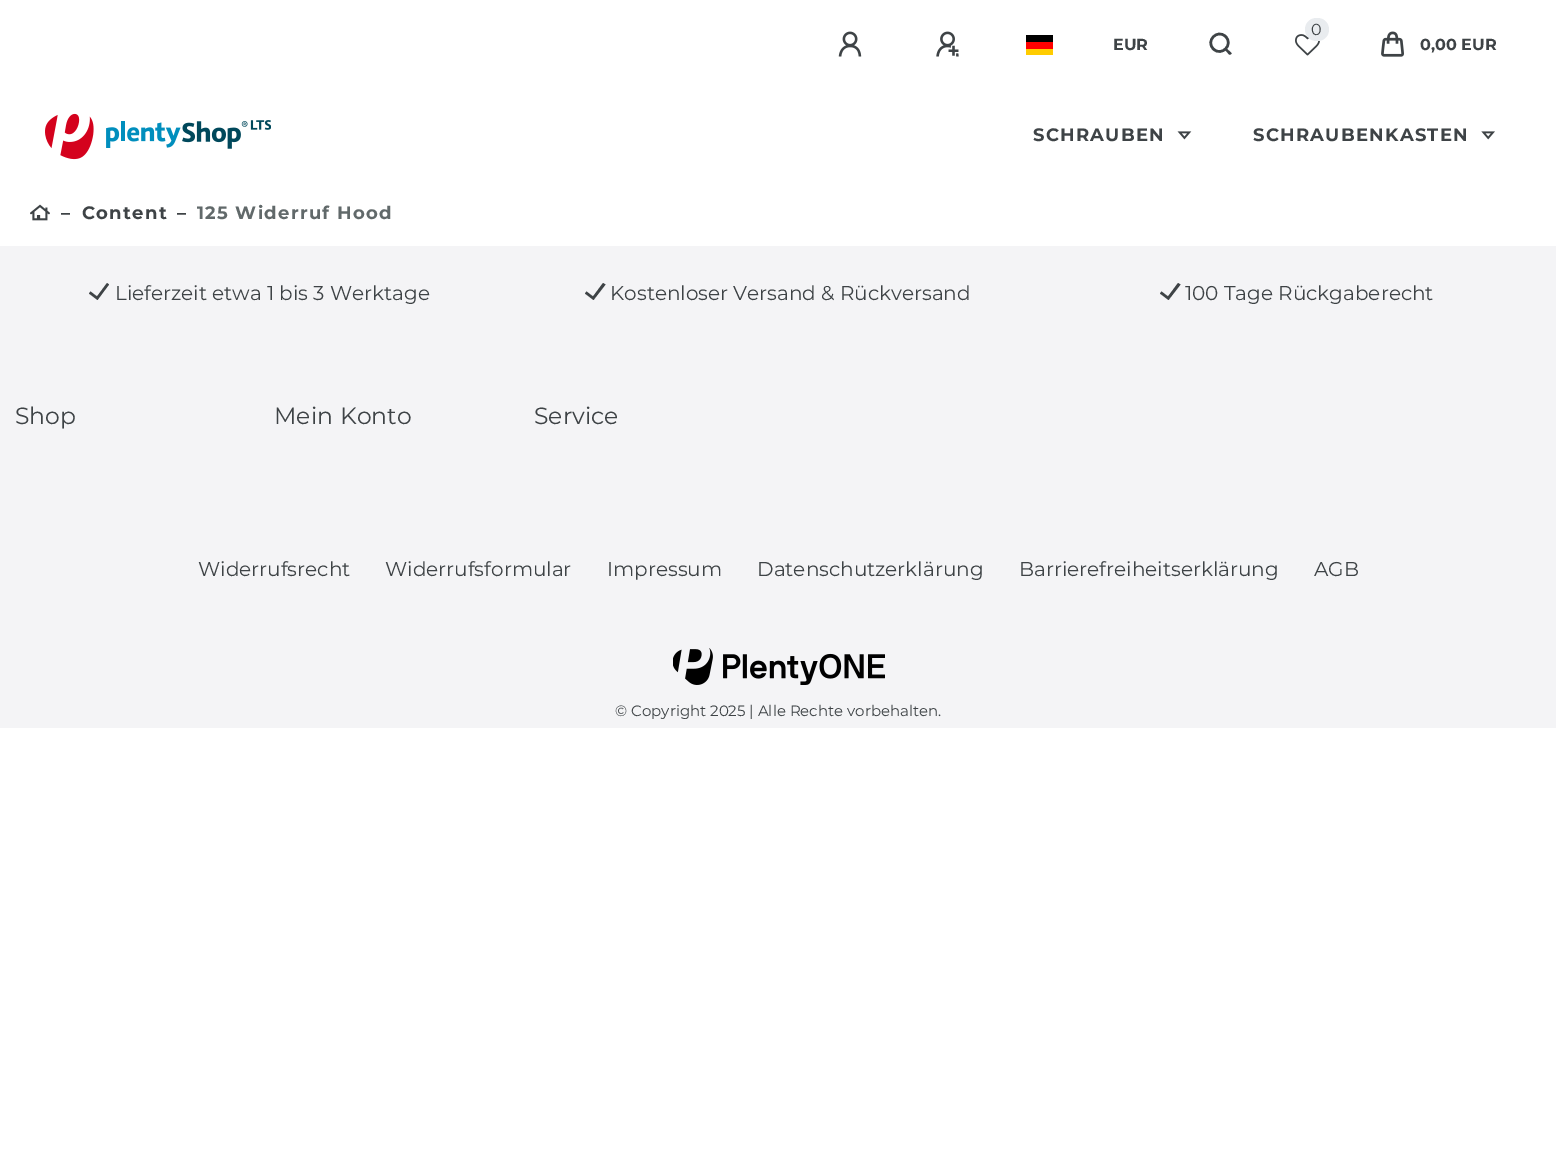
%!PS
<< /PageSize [1556 1151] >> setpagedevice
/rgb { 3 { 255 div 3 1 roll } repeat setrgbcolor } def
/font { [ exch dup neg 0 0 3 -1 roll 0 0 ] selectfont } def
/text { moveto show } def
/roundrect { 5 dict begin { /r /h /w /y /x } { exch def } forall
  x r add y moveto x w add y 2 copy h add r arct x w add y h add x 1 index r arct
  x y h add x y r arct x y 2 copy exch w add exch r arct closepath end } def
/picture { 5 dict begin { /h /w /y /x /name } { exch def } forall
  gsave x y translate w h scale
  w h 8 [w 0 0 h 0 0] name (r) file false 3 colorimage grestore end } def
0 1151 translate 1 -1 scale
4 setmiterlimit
255 255 255 rgb
0 0 1556 1151 rectfill
(img_01.rgb) 1295 34 25 22 picture
233 236 239 rgb
1305 18 24 23 11.5 roundrect fill
(img_02.rgb) 838 31 24 26 picture
(img_03.rgb) 936 31 23 26 picture
255 204 0 rgb
1026 49 27 6 rectfill
0 0 0 rgb
1026 35 27 7 rectfill
255 0 0 rgb
1026 42 27 7 rectfill
62 67 70 rgb
1229 54.5 moveto -2.5 -3 rlineto -1 -1 -3 -2.5 -1.5 -3.5 rcurveto 1 0 rlineto 5.5 5 rlineto 0.5 1 -1.5 2 -2.5 1.5 rcurveto closepath fill
2.5 setlinewidth
1213.5 49 moveto -8.5 -8 4 -20.5 12 -12.5 rcurveto 8.5 8 -4 20.5 -12 12.5 rcurveto closepath stroke
(img_04.rgb) 1381 31 23 26 picture
(img_05.rgb) 45 113 226 47 picture
(img_06.rgb) 1177 131 15 9 picture
(img_07.rgb) 1481 131 14 9 picture
(img_08.rgb) 30 204 20 17 picture
244 244 246 rgb
0 246 1556 482 rectfill
62 67 70 rgb
97.5 300 moveto -8.5 -6.5 rlineto 1.5 -2 rlineto 6.5 5 rlineto 10 -13.5 rlineto 2 1.5 rlineto closepath fill
593.5 300 moveto -8.5 -6.5 rlineto 1.5 -2 rlineto 6.5 5 rlineto 10 -13.5 rlineto 2.5 1.5 rlineto closepath fill
1168.5 300 moveto -8.5 -6.5 rlineto 1.5 -2 rlineto 6.5 5 rlineto 10 -13.5 rlineto 2.5 1.5 rlineto closepath fill
(img_09.rgb) 673 648 212 37 picture
/Montserrat-Regular 16 font
(0) 1311 35 text
/Montserrat-Bold 16 font
(EUR) 1113 50 text
(0,00 EUR) 1420 50 text
/Montserrat-Bold 18 font
1033 141 moveto 1.25 0 (SCHRAUBEN) ashow
1253 141 moveto 1.25 0 (SCHRAUBENKASTEN) ashow
61 219 moveto 1.25 0 (–) ashow
82 219 moveto 1.25 0 (Content) ashow
177 219 moveto 1.25 0 (–) ashow
97 105 106 rgb
197 219 moveto 1.25 0 (125 Widerruf Hood) ashow
/Montserrat-Regular 20 font
62 67 70 rgb
(Lieferzeit etwa 1 bis 3 Werktage) 115 300 text
(Kostenloser Versand & Rückversand) 610 300 text
(100 Tage Rückgaberecht) 1185 300 text
/Montserrat-Regular 23.5 font
(Shop) 15 424 text
274 424 moveto 1 0 32 (Mein Konto) widthshow
(Service) 534 424 text
/Montserrat-Regular 20 font
(Widerrufsrecht) 198 576 text
(Widerrufsformular) 385 576 text
(Impressum) 607 576 text
(Datenschutzerklärung) 757 576 text
(Barrierefreiheitserklärung) 1019 576 text
(AGB) 1314 576 text
/Montserrat-Regular 15 font
(© Copyright 2025 | Alle Rechte vorbehalten.) 615 716 text
showpage
